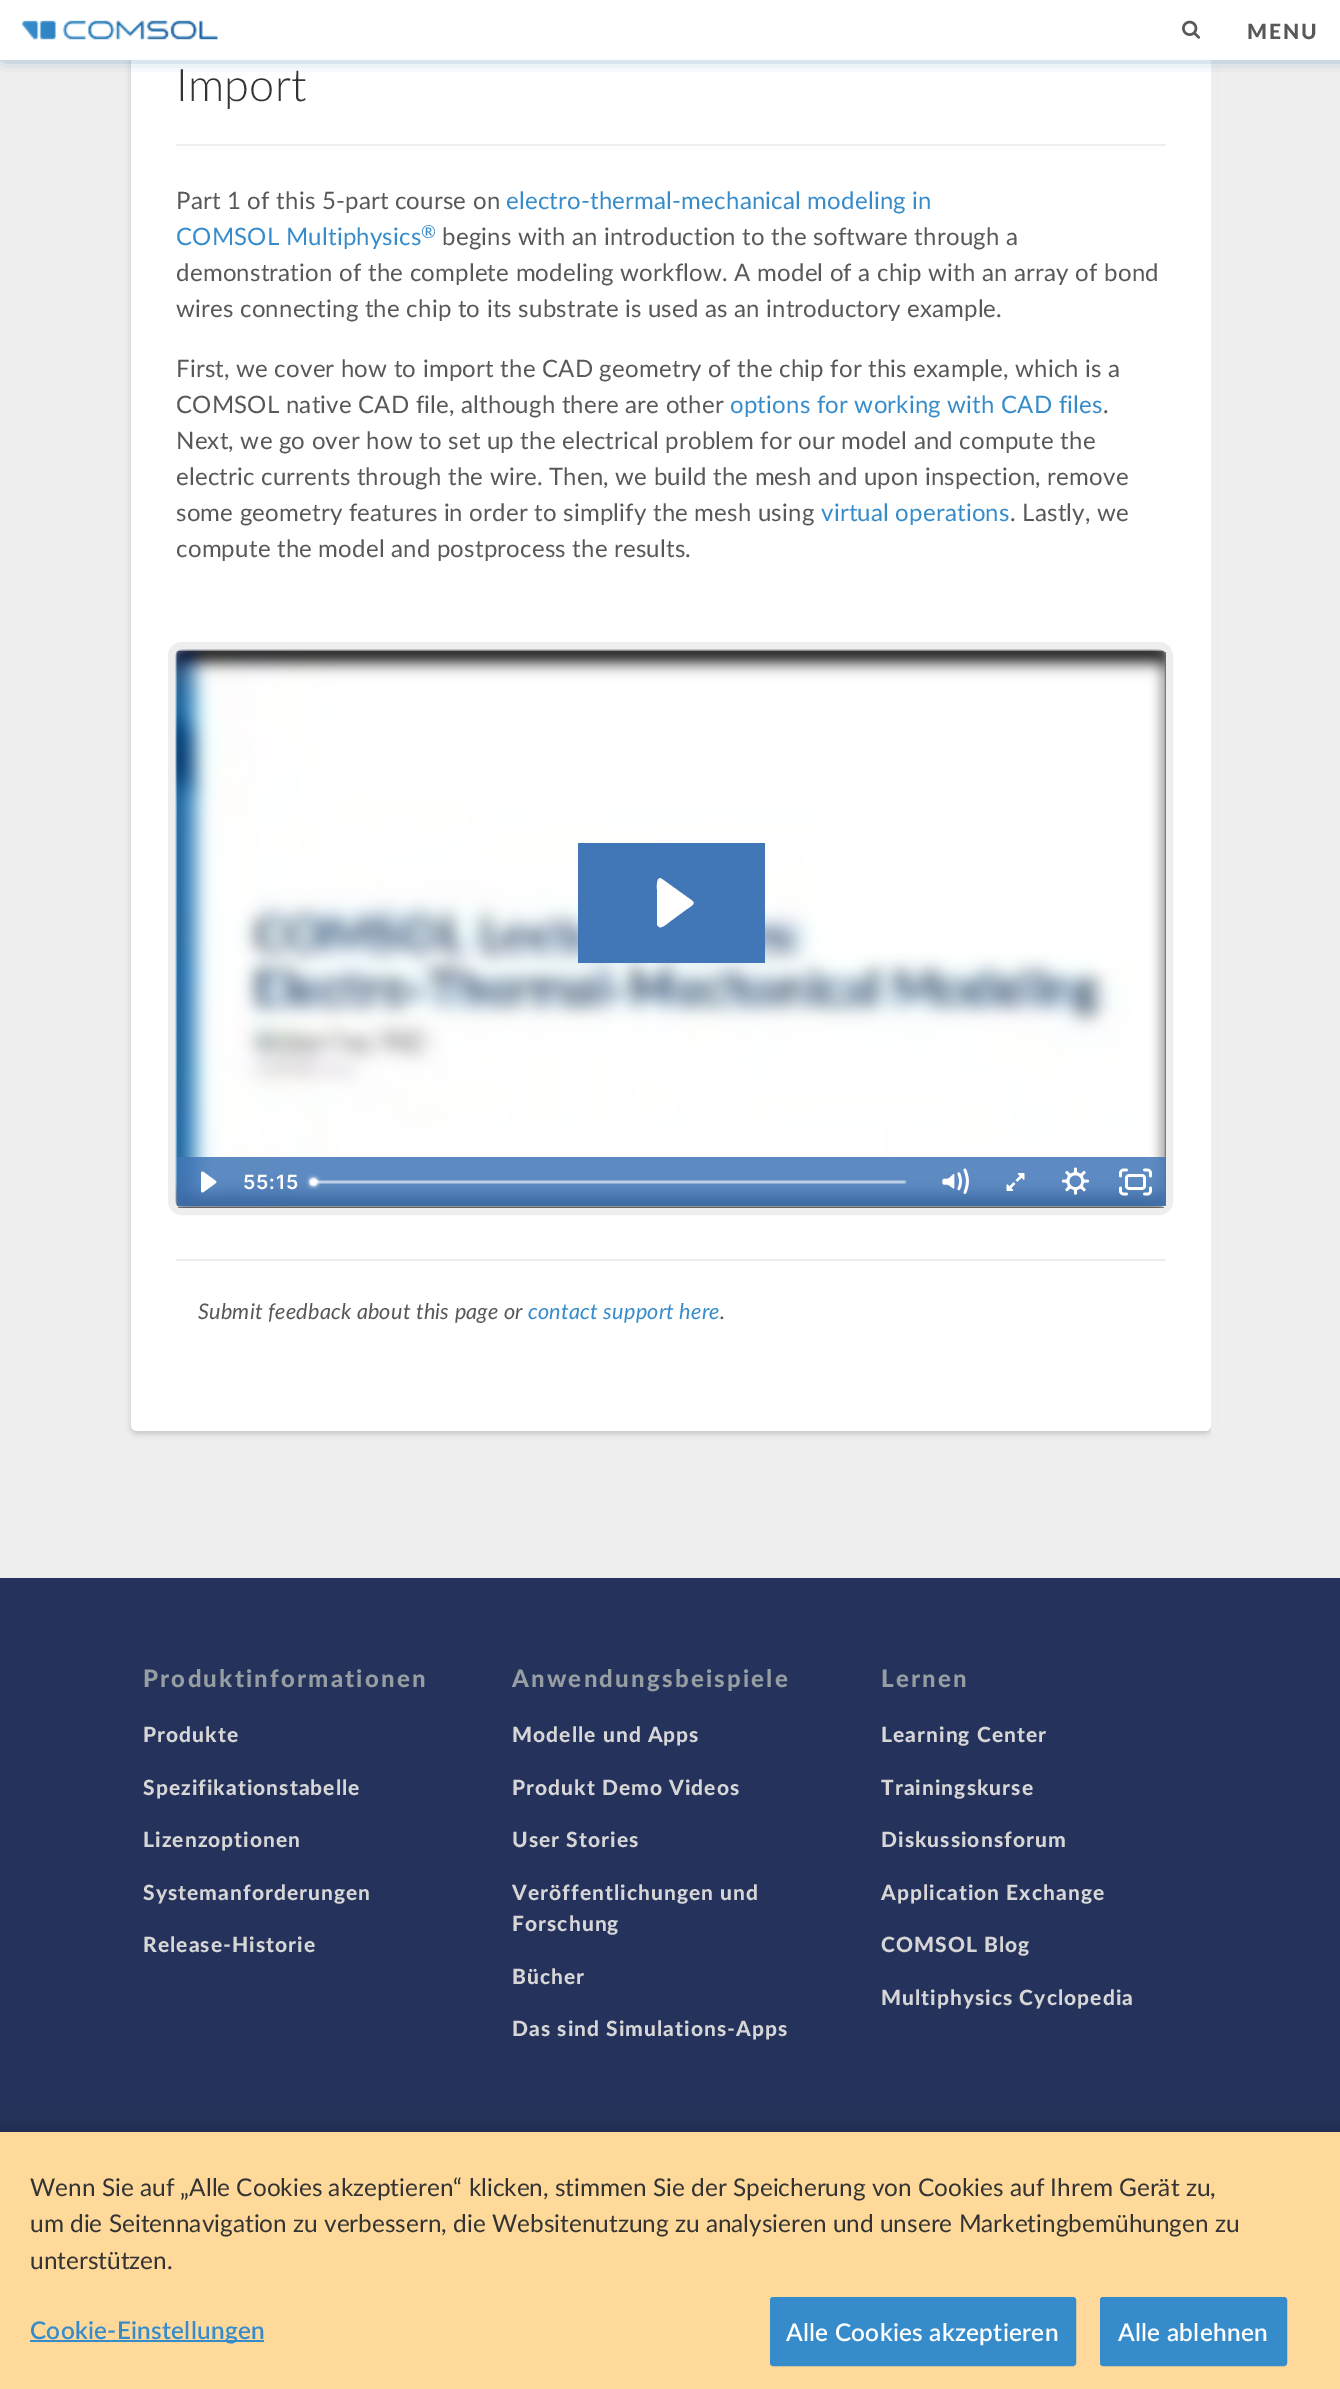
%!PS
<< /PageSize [1340 2389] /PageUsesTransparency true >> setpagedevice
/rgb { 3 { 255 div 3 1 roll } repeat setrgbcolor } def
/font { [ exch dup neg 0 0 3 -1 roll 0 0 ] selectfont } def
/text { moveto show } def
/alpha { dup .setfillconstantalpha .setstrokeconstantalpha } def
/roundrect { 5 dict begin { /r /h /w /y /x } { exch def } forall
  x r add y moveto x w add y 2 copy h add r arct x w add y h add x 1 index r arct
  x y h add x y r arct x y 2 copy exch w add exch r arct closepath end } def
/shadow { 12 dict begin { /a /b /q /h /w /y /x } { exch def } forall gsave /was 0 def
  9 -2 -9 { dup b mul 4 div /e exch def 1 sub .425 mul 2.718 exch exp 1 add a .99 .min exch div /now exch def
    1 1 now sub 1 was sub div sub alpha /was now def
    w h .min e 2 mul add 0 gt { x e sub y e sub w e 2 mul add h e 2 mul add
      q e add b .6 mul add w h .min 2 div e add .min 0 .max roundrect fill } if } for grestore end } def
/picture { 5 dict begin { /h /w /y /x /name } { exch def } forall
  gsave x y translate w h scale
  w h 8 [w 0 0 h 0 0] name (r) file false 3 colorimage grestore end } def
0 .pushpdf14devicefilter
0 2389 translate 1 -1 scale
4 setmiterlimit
37 50 91 rgb
0 0 1340 2389 rectfill
238 238 238 rgb
0 60 1340 1518 rectfill
100 100 100 rgb
131 -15 1080 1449 6 3 0.3 shadow
255 255 255 rgb
131 -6 1080 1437 6 roundrect fill
238 238 238 rgb
1211 60 5 1376 rectfill
0 85 150 rgb
5 -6 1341 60 0 8 1 shadow
255 255 255 rgb
0 0 1340 60 rectfill
(img_01.rgb) 22 20 196 20 picture
(img_02.rgb) 1182 20 19 19 picture
238 238 238 rgb
176 144 990 2 rectfill
8 setlinewidth
172 646 997 565 10 roundrect stroke
(img_03.rgb) 175 649 991 559 picture
gsave
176 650 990 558 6 roundrect clip newpath
0 0 0 rgb
176 650 990 558 0 7.5 1 shadow
grestore
(img_04.rgb) 176 650 989 557 picture
65 118 183 rgb
578 843 187 120 rectfill
255 255 255 rgb
662 879 moveto -6 -4 -5 9 -5 10 rcurveto 0 36 rlineto 2 2 rlineto 3 2 11 -6 13 -7 rcurveto 15 -11 rlineto 9 -6 9 -6 0 -12 rcurveto closepath eofill
gsave
177 651 989 555 rectclip
0.85 alpha
65 118 183 rgb
176 1157 moveto 990 0 rlineto 0 45 rlineto 0 3.5 -2.5 6 -6 6 rcurveto -978 0 rlineto -3.5 0 -6 -2.5 -6 -6 rcurveto closepath fill
grestore
(img_05.rgb) 201 1171 16 22 picture
(img_06.rgb) 306 1174 601 16 picture
(img_07.rgb) 942 1168 27 26 picture
(img_08.rgb) 1006 1173 19 18 picture
(img_09.rgb) 1062 1167 27 28 picture
(img_10.rgb) 1119 1168 33 28 picture
238 238 238 rgb
176 1259 990 2 rectfill
0 0 0 rgb
0 2132 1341 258 0 13.5 0.2 shadow
255 217 153 rgb
0 2132 1340 257 rectfill
54 140 203 rgb
30 2340 234 2 rectfill
771 2298 304 67 2 roundrect gsave fill grestore
2 setlinewidth
stroke
1101 2298 185 67 2 roundrect gsave fill grestore
stroke
/Lato-Black 21 font
88 88 88 rgb
1247 39 moveto 2 0 (MENU) ashow
/Lato-Light 45 font
51 51 51 rgb
176 101 moveto 0.22 0 (Import) ashow
/Lato-Regular 24 font
88 88 88 rgb
176 209 moveto 0.22 0 (Part 1 of this 5-part course on) ashow
54 140 203 rgb
506 209 moveto 0.22 0 (electro-thermal-mechanical modeling in) ashow
176 245 moveto 0.22 0 (COMSOL Multiphysics) ashow
/Lato-Regular 18 font
421 238 moveto 0.22 0 (®) ashow
/Lato-Regular 24 font
88 88 88 rgb
442 245 moveto 0.22 0 (begins with an introduction to the software through a) ashow
176 281 moveto 0.22 0 (demonstration of the complete modeling workflow. A model of a chip with an array of bond) ashow
176 317 moveto 0.22 0 (wires connecting the chip to its substrate is used as an introductory example.) ashow
176 377 moveto 0.22 0 (First, we cover how to import the CAD geometry of the chip for this example, which is a) ashow
176 413 moveto 0.22 0 (COMSOL native CAD file, although there are other) ashow
54 140 203 rgb
730 413 moveto 0.22 0 (options for working with CAD files) ashow
88 88 88 rgb
1103 413 moveto 0.22 0 (.) ashow
176 449 moveto 0.22 0 (Next, we go over how to set up the electrical problem for our model and compute the) ashow
176 485 moveto 0.22 0 (electric currents through the wire. Then, we build the mesh and upon inspection, remove) ashow
176 521 moveto 0.22 0 (some geometry features in order to simplify the mesh using) ashow
54 140 203 rgb
821 521 moveto 0.22 0 (virtual operations) ashow
88 88 88 rgb
1010 521 moveto 0.22 0 (. Lastly, we) ashow
176 557 moveto 0.22 0 (compute the model and postprocess the results.) ashow
/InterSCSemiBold-SemiBold 19.5 font
255 255 255 rgb
243 1189 moveto 0.75 0 (55:15) ashow
/Lato-Italic 21.6 font
88 88 88 rgb
198 1319 moveto 0.22 0 (Submit feedback about this page or) ashow
54 140 203 rgb
528 1319 moveto 0.22 0 (contact support here) ashow
88 88 88 rgb
720 1319 moveto 0.22 0 (.) ashow
/Lato-Black 24 font
151 158 162 rgb
143 1687 moveto 2.2 0 (Produktinformationen) ashow
/Lato-Black 21 font
214 214 214 rgb
143 1742 moveto 1.05 0 (Produkte) ashow
143 1795 moveto 1.05 0 (Spezifikationstabelle) ashow
143 1847 moveto 1.05 0 (Lizenzoptionen) ashow
143 1900 moveto 1.05 0 (Systemanforderungen) ashow
143 1952 moveto 1.05 0 (Release-Historie) ashow
/Lato-Black 24 font
151 158 162 rgb
512 1687 moveto 2.2 0 (Anwendungsbeispiele) ashow
/Lato-Black 21 font
214 214 214 rgb
512 1742 moveto 1.05 0 (Modelle und Apps) ashow
512 1795 moveto 1.05 0 (Produkt Demo Videos) ashow
512 1847 moveto 1.05 0 (User Stories) ashow
512 1900 moveto 1.05 0 (Veröffentlichungen und) ashow
512 1931 moveto 1.05 0 (Forschung) ashow
512 1984 moveto 1.05 0 (Bücher) ashow
512 2036 moveto 1.05 0 (Das sind Simulations-Apps) ashow
/Lato-Black 24 font
151 158 162 rgb
881 1687 moveto 2.2 0 (Lernen) ashow
/Lato-Black 21 font
214 214 214 rgb
881 1742 moveto 1.05 0 (Learning Center) ashow
881 1795 moveto 1.05 0 (Trainingskurse) ashow
881 1847 moveto 1.05 0 (Diskussionsforum) ashow
881 1900 moveto 1.05 0 (Application Exchange) ashow
881 1952 moveto 1.05 0 (COMSOL Blog) ashow
881 2005 moveto 1.05 0 (Multiphysics Cyclopedia) ashow
/Lato-Regular 24.4 font
51 51 51 rgb
(Wenn Sie auf „Alle Cookies akzeptieren“ klicken, stimmen Sie der Speicherung von Cookies auf Ihrem Gerät zu,) 30 2196 text
(um die Seitennavigation zu verbessern, die Websitenutzung zu analysieren und unsere Marketingbemühungen zu) 30 2232 text
(unterstützen.) 30 2269 text
/Lato-SemiBold 24.4 font
54 140 203 rgb
30 2339 moveto 0.25 0 (Cookie-Einstellungen) ashow
255 255 255 rgb
786 2341 moveto 0.25 0 (Alle Cookies akzeptieren) ashow
1118 2341 moveto 0.25 0 (Alle ablehnen) ashow
.poppdf14devicefilter showpage
